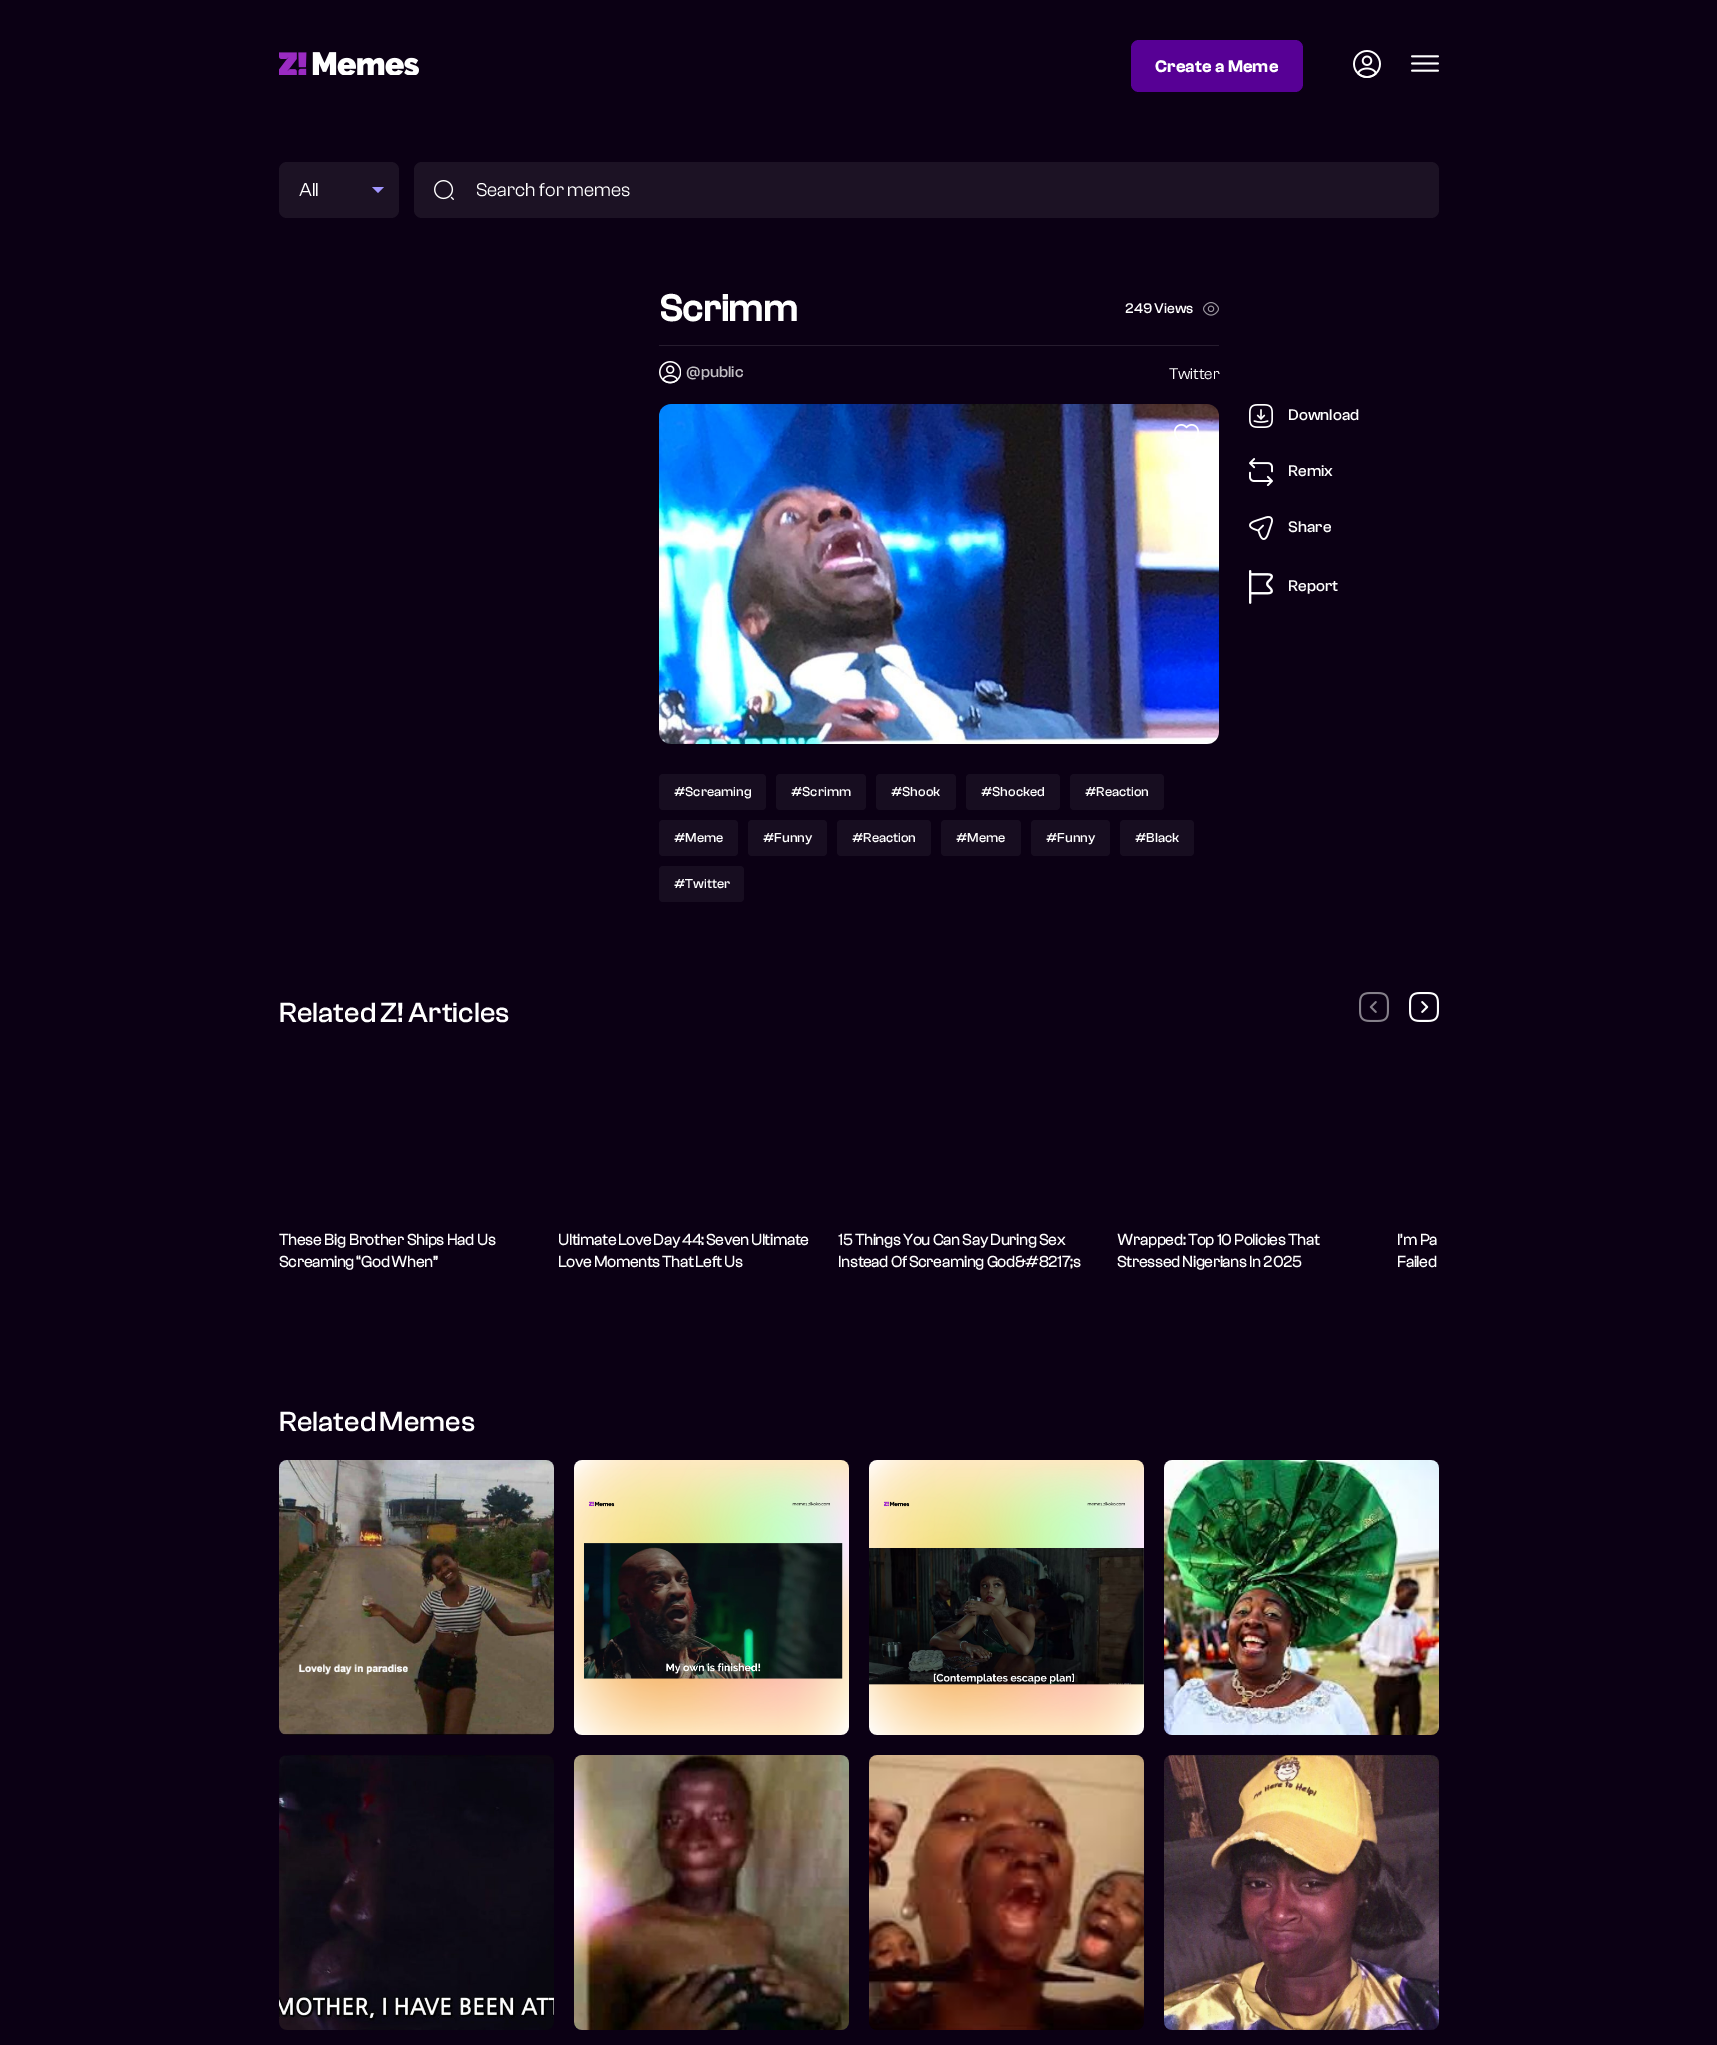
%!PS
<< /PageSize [1717 2045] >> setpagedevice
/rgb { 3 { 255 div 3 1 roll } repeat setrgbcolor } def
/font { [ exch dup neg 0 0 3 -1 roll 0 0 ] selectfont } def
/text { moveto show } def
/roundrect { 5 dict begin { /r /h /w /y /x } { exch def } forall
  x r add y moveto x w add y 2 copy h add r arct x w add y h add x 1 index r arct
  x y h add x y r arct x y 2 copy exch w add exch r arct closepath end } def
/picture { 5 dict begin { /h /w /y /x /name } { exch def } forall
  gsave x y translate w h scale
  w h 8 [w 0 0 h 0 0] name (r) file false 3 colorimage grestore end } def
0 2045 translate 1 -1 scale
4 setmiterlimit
11 0 20 rgb
0 0 1717 2045 rectfill
(img_01.rgb) 279 52 140 23 picture
87 0 149 rgb
1131 40 172 52 8 roundrect fill
(img_02.rgb) 1353 50 28 28 picture
(img_03.rgb) 1411 55 28 17 picture
28 18 36 rgb
279 162 120 56 8 roundrect fill
161 150 255 rgb
372 187 moveto 12 0 rlineto -6 6 rlineto closepath fill
28 18 36 rgb
414 162 1025 56 8 roundrect fill
(img_04.rgb) 434 180 20 20 picture
38 28 46 rgb
659 345 560 1 rectfill
(img_05.rgb) 1203 302 16 14 picture
(img_06.rgb) 659 361 22 23 picture
(img_07.rgb) 659 404 560 340 picture
(img_08.rgb) 1249 404 24 24 picture
(img_09.rgb) 1249 458 24 28 picture
(img_10.rgb) 1249 516 24 24 picture
(img_11.rgb) 1249 570 24 34 picture
(img_12.rgb) 1174 424 25 17 picture
23 13 32 rgb
659 774 107 36 4 roundrect fill
776 774 90 36 4 roundrect fill
876 774 80 36 4 roundrect fill
966 774 94 36 4 roundrect fill
1070 774 94 36 4 roundrect fill
659 820 79 36 4 roundrect fill
748 820 79 36 4 roundrect fill
837 820 94 36 4 roundrect fill
941 820 80 36 4 roundrect fill
1031 820 79 36 4 roundrect fill
1120 820 74 36 4 roundrect fill
659 866 85 36 4 roundrect fill
(img_13.rgb) 1359 992 30 30 picture
(img_14.rgb) 1409 992 30 30 picture
(img_15.rgb) 279 1460 275 275 picture
(img_16.rgb) 574 1460 275 275 picture
(img_17.rgb) 869 1460 275 275 picture
(img_18.rgb) 1164 1460 275 275 picture
(img_19.rgb) 279 1755 275 275 picture
(img_20.rgb) 574 1755 275 275 picture
(img_21.rgb) 869 1755 275 275 picture
(img_22.rgb) 1164 1755 275 275 picture
/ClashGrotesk-SemiBold 17.5 font
255 255 255 rgb
(Create a Meme) 1155 72 text
/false-Regular 19.25 font
(All) 299 196 text
(Search for memes) 476 196 text
/ClashGrotesk-Bold 38.5 font
(Scrimm) 659 321 text
/ClashGrotesk-Medium 14.5 font
1125 313 moveto -1 0 32 (249 Views) widthshow
/ClashGrotesk-Medium 16 font
194 191 196 rgb
(@public) 686 377 text
/false-Regular 16 font
255 255 255 rgb
(Twitter) 1169 379 text
/ClashGrotesk-Medium 16 font
(Download) 1288 420 text
(Remix) 1288 476 text
(Share) 1288 532 text
(Report) 1288 591 text
/ClashGrotesk-Medium 13.5 font
(#Screaming) 674 796 text
(#Scrimm) 791 796 text
(#Shook) 891 796 text
(#Shocked) 981 796 text
(#Reaction) 1085 796 text
(#Meme) 674 842 text
(#Funny) 763 842 text
(#Reaction) 852 842 text
(#Meme) 956 842 text
(#Funny) 1046 842 text
(#Black) 1135 842 text
(#Twitter) 674 888 text
/ClashGrotesk-Medium 28.75 font
279 1022 moveto -1 0 32 (Related Z! Articles) widthshow
/false-Bold 16 font
(These Big Brother Ships Had Us) 279 1245 text
279 1267 moveto -1 0 32 (Screaming “God When”) widthshow
558 1245 moveto -1 0 32 (Ultimate Love Day 44: Seven Ultimate) widthshow
558 1267 moveto -1 0 32 (Love Moments That Left Us) widthshow
838 1245 moveto -0.5 0 32 (15 Things You Can Say During Sex) widthshow
838 1267 moveto -0.5 0 32 (Instead Of Screaming God&#8217;s) widthshow
1117 1245 moveto -0.5 0 32 (Wrapped: Top 10 Policies That) widthshow
1117 1267 moveto -0.5 0 32 (Stressed Nigerians In 2025) widthshow
(I’m Pa) 1397 1245 text
1397 1267 moveto -1 0 32 (Failed) widthshow
/ClashGrotesk-Medium 28.75 font
279 1431 moveto -2 0 32 (Related Memes) widthshow
showpage
